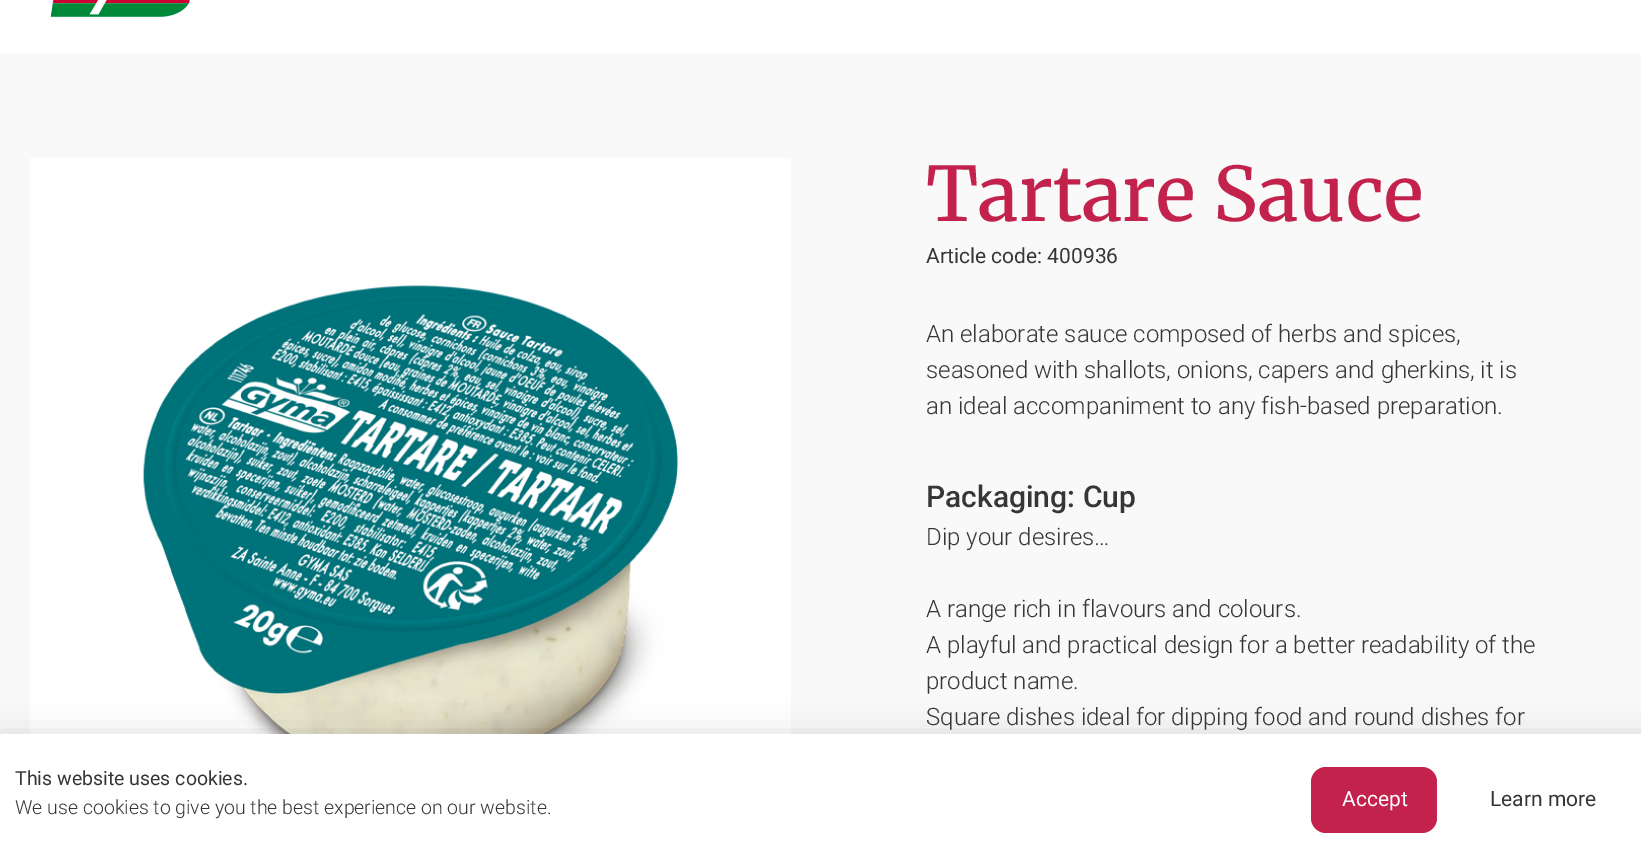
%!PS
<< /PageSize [1641 863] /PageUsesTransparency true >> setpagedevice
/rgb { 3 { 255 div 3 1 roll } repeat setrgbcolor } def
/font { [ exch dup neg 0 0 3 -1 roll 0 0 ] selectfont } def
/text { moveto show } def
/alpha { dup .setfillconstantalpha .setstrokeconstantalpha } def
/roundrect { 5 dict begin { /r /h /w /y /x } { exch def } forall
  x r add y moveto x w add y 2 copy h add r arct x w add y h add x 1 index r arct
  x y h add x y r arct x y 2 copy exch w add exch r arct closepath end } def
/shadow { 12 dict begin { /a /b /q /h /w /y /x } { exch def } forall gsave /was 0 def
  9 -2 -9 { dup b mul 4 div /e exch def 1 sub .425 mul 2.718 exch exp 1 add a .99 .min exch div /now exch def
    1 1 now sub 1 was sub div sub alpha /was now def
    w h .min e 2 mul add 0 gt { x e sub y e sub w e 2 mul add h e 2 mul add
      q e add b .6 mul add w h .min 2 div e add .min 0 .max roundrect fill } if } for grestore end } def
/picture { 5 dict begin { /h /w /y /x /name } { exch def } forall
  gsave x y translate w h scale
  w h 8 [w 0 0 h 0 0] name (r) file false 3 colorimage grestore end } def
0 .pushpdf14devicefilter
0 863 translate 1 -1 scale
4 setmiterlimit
255 255 255 rgb
0 0 1641 863 rectfill
(img_01.rgb) 50 0 140 17 picture
249 249 249 rgb
0 53 1641 681 rectfill
255 255 255 rgb
30 158 761 576 rectfill
(img_02.rgb) 143 285 535 449 picture
0 0 0 rgb
-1 741 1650 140 0 17 0.2 shadow
255 255 255 rgb
0 734 1641 129 rectfill
195 34 76 rgb
1311 767 126 66 15 roundrect fill
/Merriweather-Medium 75 font
(Tartare Sauce) 926 221 text
/Roboto-Regular 21 font
54 54 54 rgb
(Article code: 400936) 926 263 text
/Roboto-Light 24 font
(An elaborate sauce composed of herbs and spices,) 926 342 text
(seasoned with shallots, onions, capers and gherkins, it is) 926 378 text
(an ideal accompaniment to any fish-based preparation.) 926 414 text
/Roboto-Medium 30 font
(Packaging: Cup) 926 507 text
/Roboto-Light 24 font
(Dip your desires…) 926 545 text
(A range rich in flavours and colours.) 926 617 text
(A playful and practical design for a better readability of the) 926 653 text
(product name.) 926 689 text
(Square dishes ideal for dipping food and round dishes for) 926 725 text
/Roboto-Regular 19.5 font
(This website uses cookies.) 15 785 text
/Roboto-Light 19.5 font
(We use cookies to give you the best experience on our website.) 15 814 text
/Roboto-Regular 21 font
255 255 255 rgb
(Accept) 1342 806 text
54 54 54 rgb
(Learn more) 1490 806 text
.poppdf14devicefilter showpage
